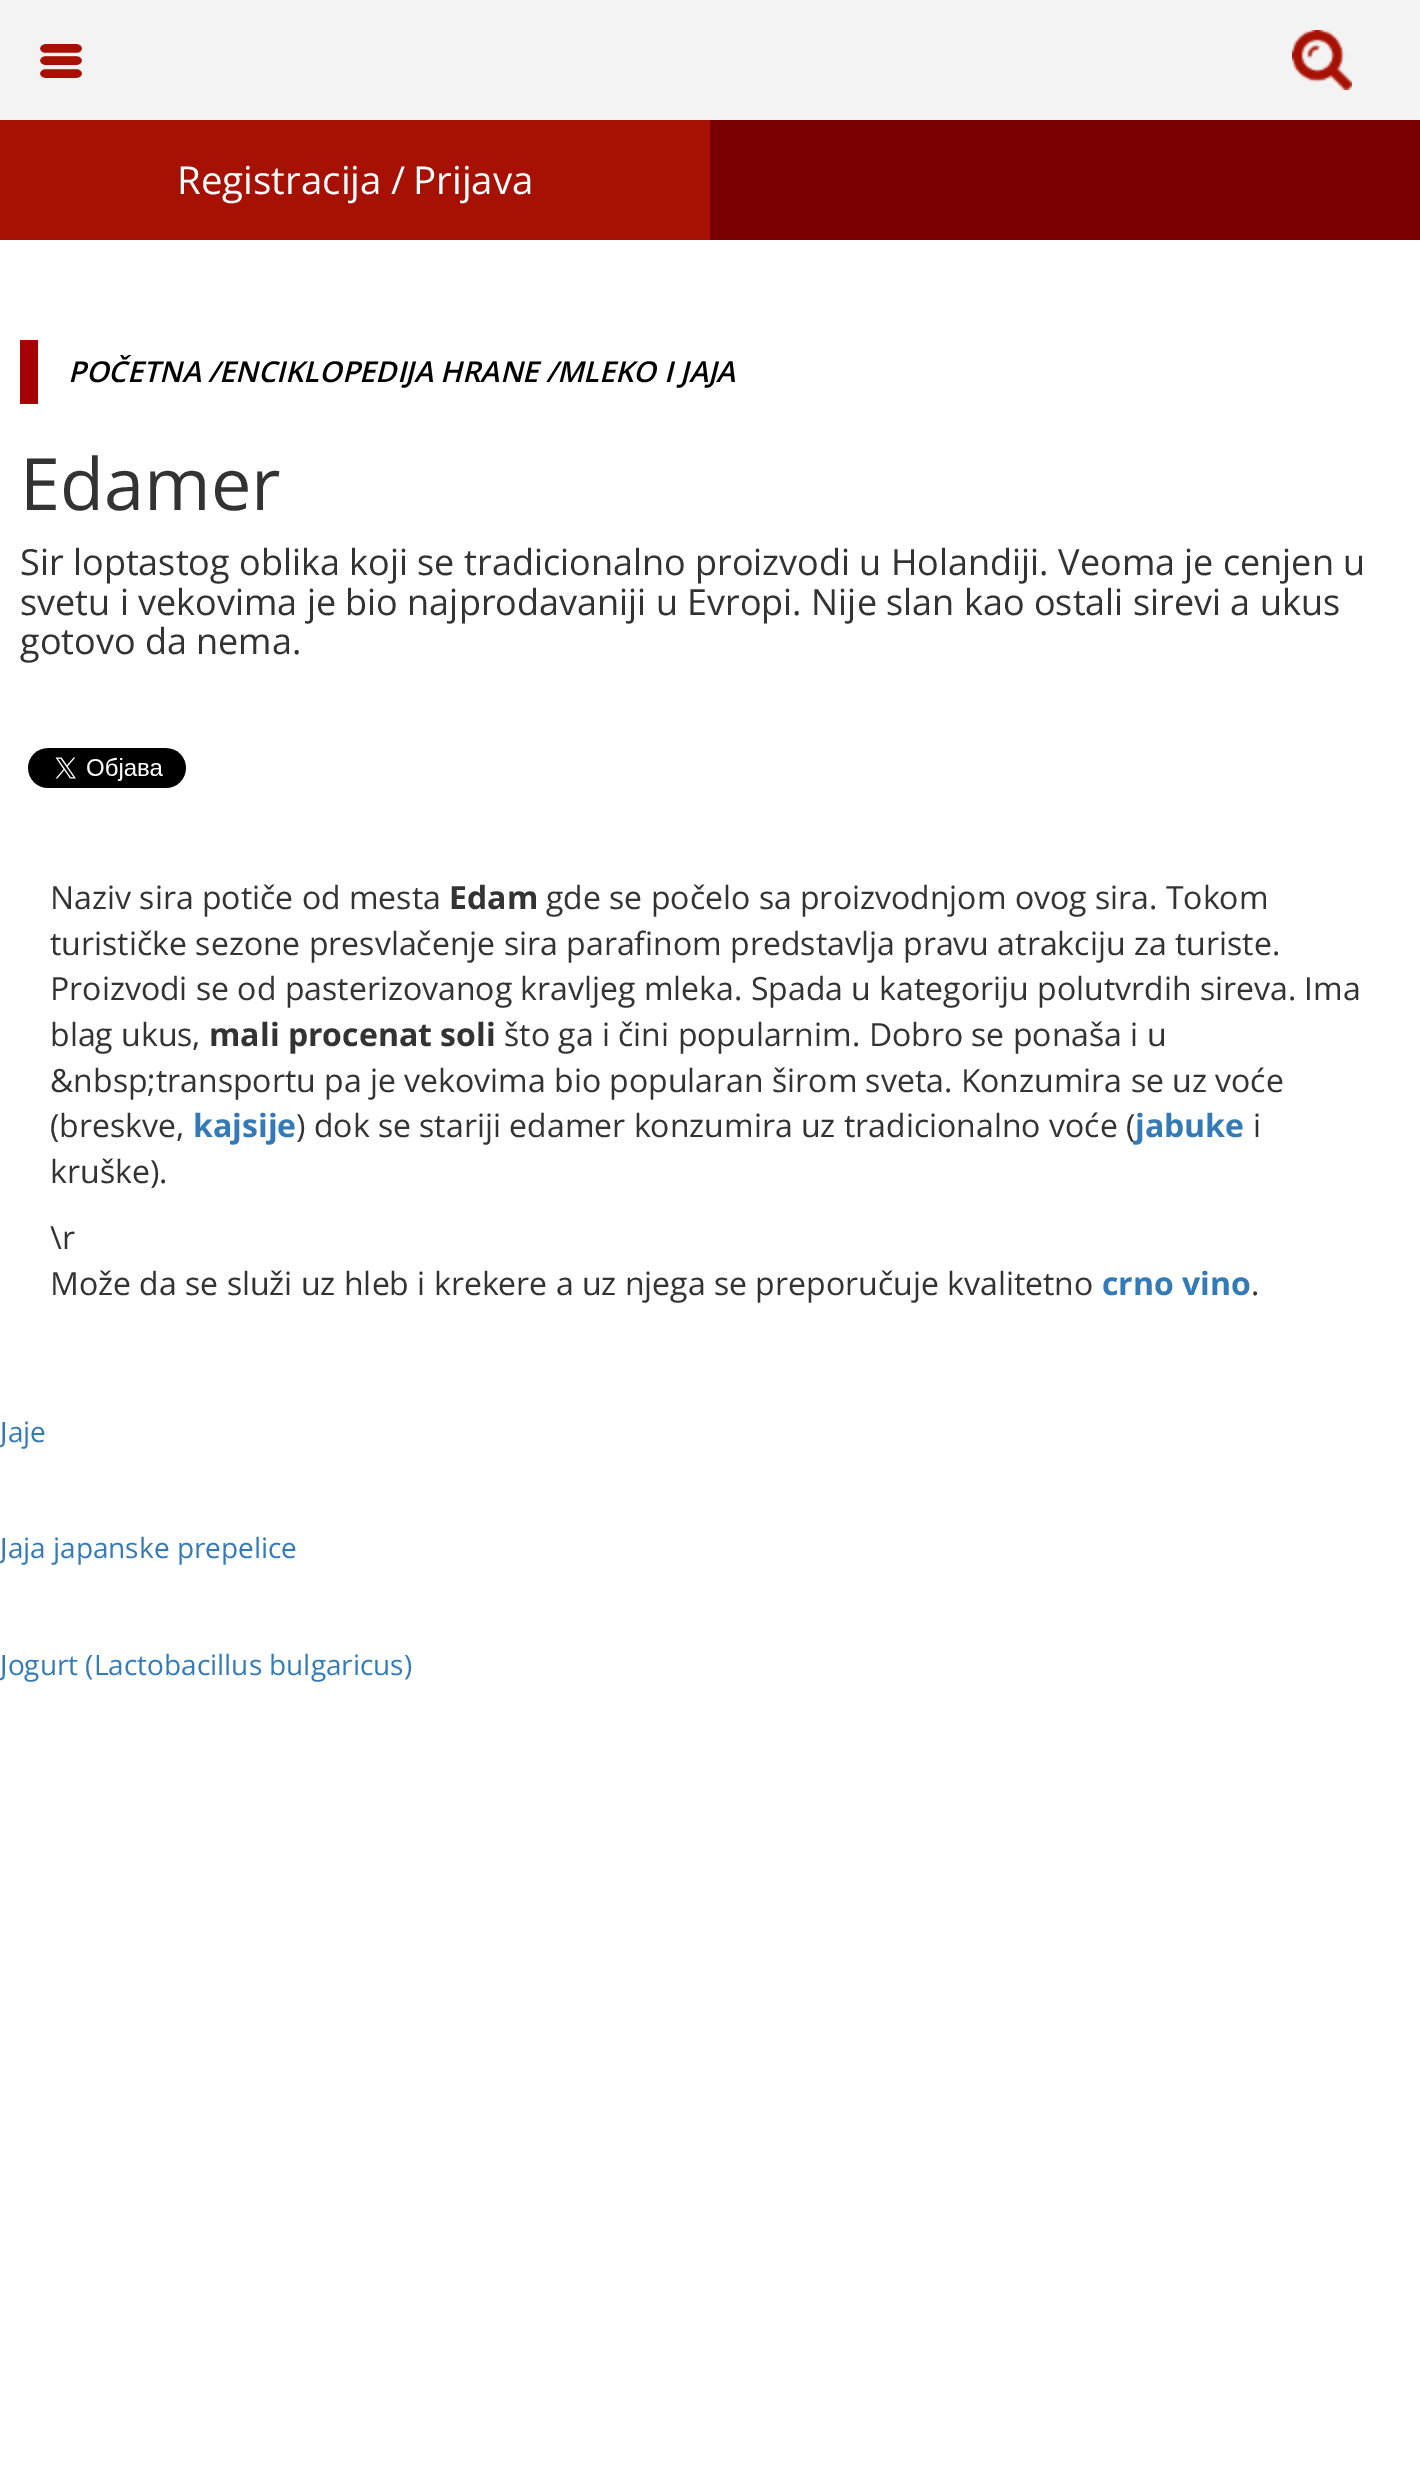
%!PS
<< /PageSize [1420 2479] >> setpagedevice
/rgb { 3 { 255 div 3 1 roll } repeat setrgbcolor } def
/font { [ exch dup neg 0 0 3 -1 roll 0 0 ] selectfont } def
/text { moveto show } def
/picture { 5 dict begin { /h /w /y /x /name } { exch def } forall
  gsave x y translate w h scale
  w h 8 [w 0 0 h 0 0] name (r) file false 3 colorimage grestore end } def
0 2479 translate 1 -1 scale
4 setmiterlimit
255 255 255 rgb
0 0 1420 2479 rectfill
243 243 243 rgb
0 0 1420 120 rectfill
(img_01.rgb) 40 44 42 34 picture
(img_02.rgb) 1292 30 60 60 picture
166 17 3 rgb
0 120 710 120 rectfill
121 0 2 rgb
710 120 710 120 rectfill
166 0 3 rgb
20 340 18 64 rectfill
(img_03.rgb) 28 748 158 40 picture
/OpenSans-Regular 38.5 font
255 255 255 rgb
(Registracija /) 177 194 text
(Prijava) 413 194 text
/OpenSans-SemiBoldItalic 28.8 font
0 0 0 rgb
(POČETNA /ENCIKLOPEDIJA HRANE /MLEKO I JAJA) 68 382 text
/OpenSans-Regular 72 font
51 51 51 rgb
(Edamer) 20 510 text
/OpenSans-Regular 36 font
(Sir loptastog oblika koji se tradicionalno proizvodi u Holandiji. Veoma je cenjen u) 20 575 text
(svetu i vekovima je bio najprodavaniji u Evropi. Nije slan kao ostali sirevi a ukus) 20 615 text
(gotovo da nema.) 20 654 text
/OpenSans-Regular 32 font
(Naziv sira potiče od mesta) 50 909 text
/OpenSans-Bold 32 font
(Edam) 449 909 text
/OpenSans-Regular 32 font
(gde se počelo sa proizvodnjom ovog sira. Tokom) 546 909 text
(turističke sezone presvlačenje sira parafinom predstavlja pravu atrakciju za turiste.) 50 955 text
(Proizvodi se od pasterizovanog kravljeg mleka. Spada u kategoriju polutvrdih sireva. Ima) 50 1000 text
(blag ukus,) 50 1046 text
/OpenSans-Bold 32 font
(mali procenat soli) 209 1046 text
/OpenSans-Regular 32 font
(što ga i čini popularnim. Dobro se ponaša i u) 504 1046 text
(&nbsp;transportu pa je vekovima bio popularan širom sveta. Konzumira se uz voće) 50 1092 text
(\(breskve,) 50 1137 text
/OpenSans-Bold 32 font
51 122 183 rgb
(kajsije) 193 1137 text
/OpenSans-Regular 32 font
51 51 51 rgb
(\) dok se stariji edamer konzumira uz tradicionalno voće \() 296 1137 text
/OpenSans-Bold 32 font
51 122 183 rgb
(jabuke) 1135 1137 text
/OpenSans-Regular 32 font
51 51 51 rgb
(i) 1253 1137 text
(kruške\).) 50 1183 text
(\\r) 50 1249 text
(Može da se služi uz hleb i krekere a uz njega se preporučuje kvalitetno) 50 1295 text
/OpenSans-Bold 32 font
51 122 183 rgb
(crno vino) 1102 1295 text
/OpenSans-Regular 32 font
51 51 51 rgb
(.) 1251 1295 text
/OpenSans-Regular 28 font
51 122 183 rgb
(Jaje) 0 1442 text
(Jaja japanske prepelice) 0 1558 text
(Jogurt \(Lactobacillus bulgaricus\)) 0 1675 text
showpage
